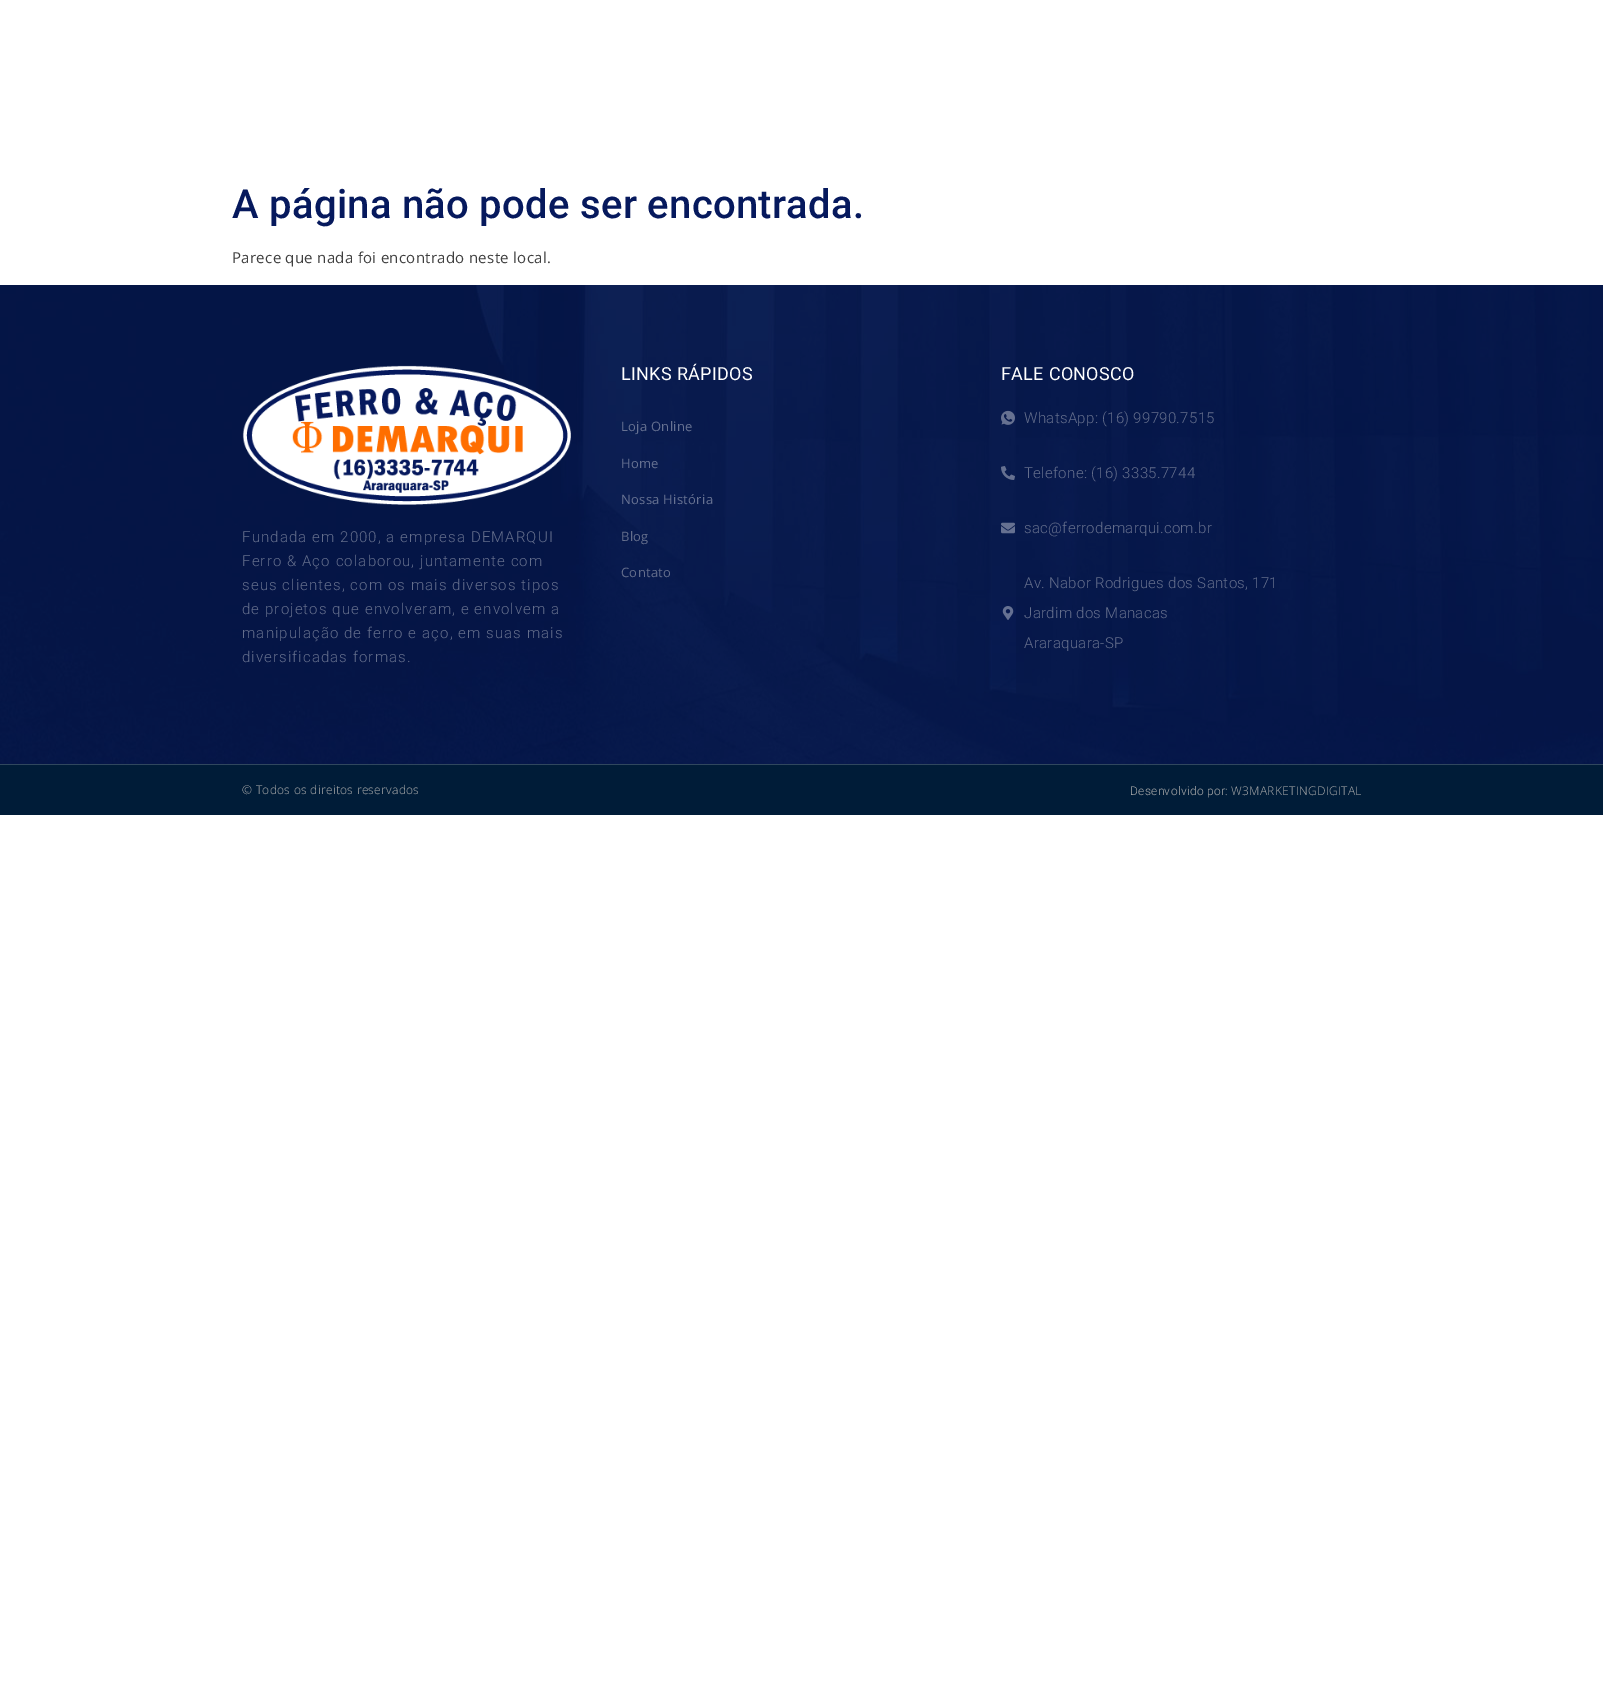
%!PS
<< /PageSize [1603 1693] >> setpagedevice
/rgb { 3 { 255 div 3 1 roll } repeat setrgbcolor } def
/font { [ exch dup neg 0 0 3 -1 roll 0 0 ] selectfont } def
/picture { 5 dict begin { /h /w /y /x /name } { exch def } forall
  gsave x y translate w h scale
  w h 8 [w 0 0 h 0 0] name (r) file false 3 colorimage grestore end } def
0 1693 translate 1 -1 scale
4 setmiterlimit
255 255 255 rgb
0 0 1603 1693 rectfill
(img_01.rgb) 0 285 1603 479 picture
(img_02.rgb) 242 365 329 140 picture
(img_03.rgb) 1001 410 14 15 picture
(img_04.rgb) 1001 466 14 14 picture
(img_05.rgb) 1001 522 14 12 picture
(img_06.rgb) 1002 606 12 14 picture
0 28 56 rgb
0 765 1603 50 rectfill
48 71 94 rgb
0 764 1603 1 rectfill
/Roboto-Medium 40 font
6 25 93 rgb
232 218 moveto 0.3 0 (A página não pode ser encontrada.) ashow
/OpenSans-Regular 15 font
63 63 63 rgb
232 263 moveto 0.3 0 (Parece que nada foi encontrado neste local.) ashow
/Roboto-Light 15 font
100 110 140 rgb
242 542 moveto 1.1 0 (Fundada em 2000, a empresa DEMARQUI) ashow
242 566 moveto 1.1 0 (Ferro & Aço colaborou, juntamente com) ashow
242 590 moveto 1.1 0 (seus clientes, com os mais diversos tipos) ashow
242 614 moveto 1.1 0 (de projetos que envolveram, e envolvem a) ashow
242 638 moveto 1.1 0 (manipulação de ferro e aço, em suas mais) ashow
242 662 moveto 1.1 0 (diversificadas formas.) ashow
/Roboto-Regular 18 font
255 255 255 rgb
621 380 moveto 0.3 0 (LINKS RÁPIDOS) ashow
/OpenSans-Regular 13 font
103 114 146 rgb
621 431 moveto 0.3 0 (Loja Online) ashow
621 468 moveto 0.3 0 (Home) ashow
621 504 moveto 0.3 0 (Nossa História) ashow
100 110 140 rgb
621 541 moveto 0.3 0 (Blog) ashow
621 577 moveto 0.3 0 (Contato) ashow
/Roboto-Regular 18 font
255 255 255 rgb
1001 380 moveto 0.3 0 (FALE CONOSCO) ashow
/Roboto-Light 15 font
100 110 140 rgb
1024 423 moveto 0.3 0 (WhatsApp: \(16\) 99790.7515) ashow
1024 478 moveto 0.3 0 (Telefone: \(16\) 3335.7744) ashow
1024 533 moveto 0.3 0 (sac@ferrodemarqui.com.br) ashow
1024 588 moveto 0.3 0 (Av. Nabor Rodrigues dos Santos, 171) ashow
1024 618 moveto 0.3 0 (Jardim dos Manacas) ashow
1024 648 moveto 0.3 0 (Araraquara-SP) ashow
/OpenSans-Light 12 font
173 173 173 rgb
242 794 moveto 0.3 0 (© Todos os direitos reservados) ashow
/Roboto-Light 12 font
1130 795 moveto 0.3 0 (Desenvolvido por:) ashow
/OpenSans-Light 12 font
1231 795 moveto 0.3 0 (W3MARKETINGDIGITAL) ashow
showpage
